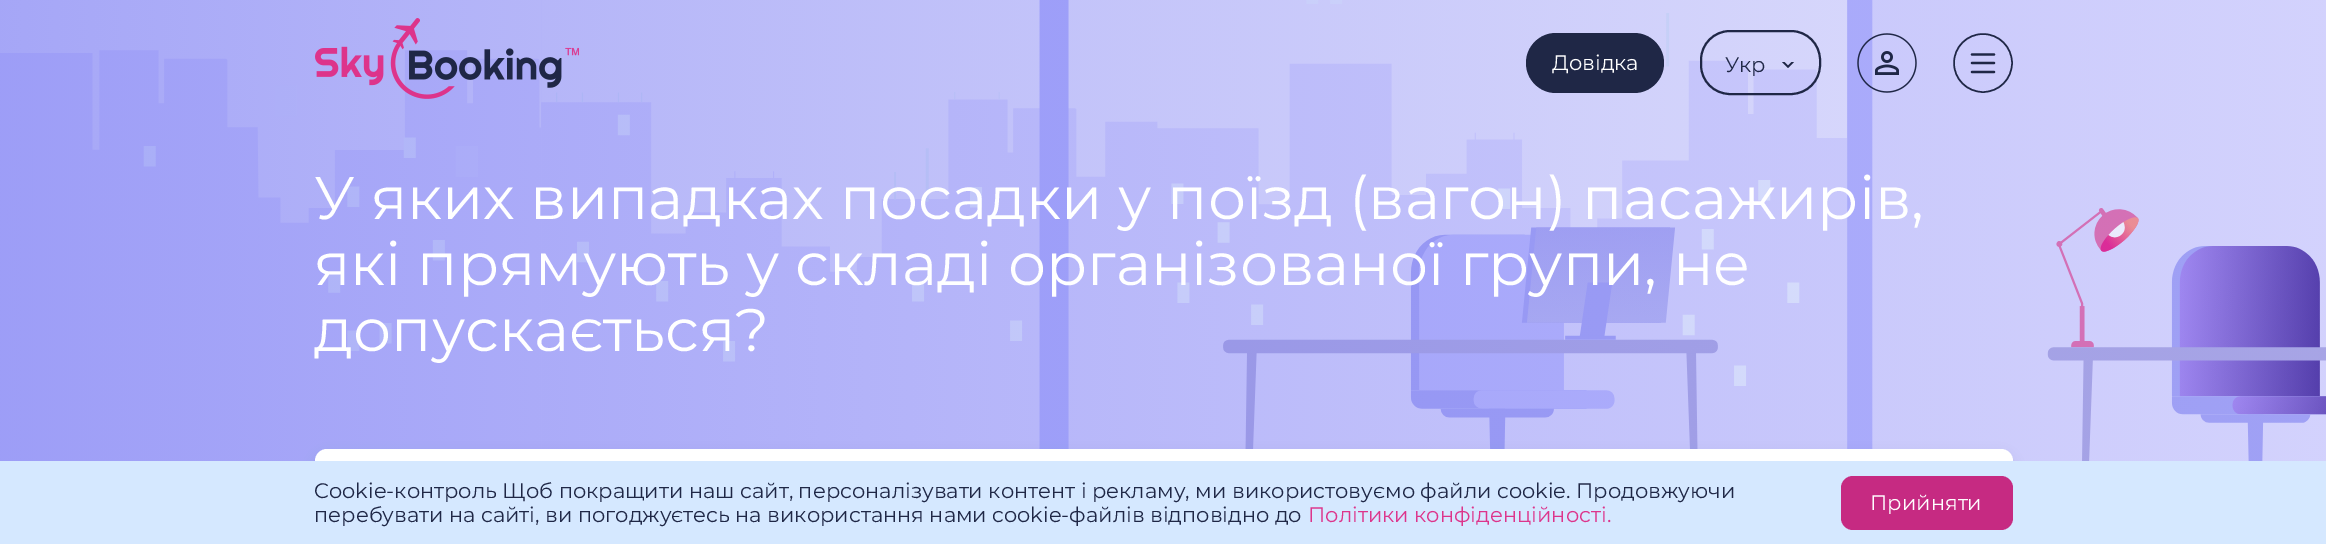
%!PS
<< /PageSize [2326 544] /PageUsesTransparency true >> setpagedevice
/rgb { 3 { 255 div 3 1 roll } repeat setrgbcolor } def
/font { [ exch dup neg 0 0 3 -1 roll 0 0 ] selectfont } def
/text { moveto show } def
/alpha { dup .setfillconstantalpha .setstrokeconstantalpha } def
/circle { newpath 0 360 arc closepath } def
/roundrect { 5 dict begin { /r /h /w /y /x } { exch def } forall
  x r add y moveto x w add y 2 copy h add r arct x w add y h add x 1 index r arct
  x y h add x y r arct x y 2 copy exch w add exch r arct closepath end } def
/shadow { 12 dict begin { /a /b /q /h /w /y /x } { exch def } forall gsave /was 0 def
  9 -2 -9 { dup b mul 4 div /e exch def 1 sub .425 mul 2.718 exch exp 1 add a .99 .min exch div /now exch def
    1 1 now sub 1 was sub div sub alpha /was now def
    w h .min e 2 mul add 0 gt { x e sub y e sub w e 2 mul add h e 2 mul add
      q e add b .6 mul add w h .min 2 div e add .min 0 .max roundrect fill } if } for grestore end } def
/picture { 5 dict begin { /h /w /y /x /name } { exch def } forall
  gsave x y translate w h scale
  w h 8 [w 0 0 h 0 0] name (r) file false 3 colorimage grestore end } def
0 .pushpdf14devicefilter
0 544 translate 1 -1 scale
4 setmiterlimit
255 255 255 rgb
0 0 2326 544 rectfill
(img_04.rgb) 0 0 2326 461 picture
(img_01.rgb) 315 18 264 81 picture
31 39 70 rgb
1526 33 138 60 30 roundrect fill
2 setlinewidth
1701 31 119 63 29 roundrect stroke
(img_02.rgb) 1782 62 12 6 picture
(img_03.rgb) 1857 33 60 60 picture
1.5 setlinewidth
1983 63 29 circle stroke
2.3 setlinewidth
1 setlinecap
1 setlinejoin
1972 54.5 moveto 22 0 rlineto 1972 63 moveto 22 0 rlineto 1972 72 moveto 22 0 rlineto stroke
19 41 104 rgb
315 455 1698 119 12 6 0.1 shadow
255 255 255 rgb
315 449 1698 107 12 roundrect fill
213 232 255 rgb
0 461 2326 83 rectfill
198 42 130 rgb
1841 476 172 54 12 roundrect fill
/Montserrat-Regular 21 font
255 255 255 rgb
(Довідка) 1552 70 text
31 39 70 rgb
(Укр) 1725 72 text
/Montserrat-Regular 60 font
255 255 255 rgb
(У яких випадках посадки у поїзд \(вагон\) пасажирів,) 314 219 text
(які прямують у складі організованої групи, не) 314 285 text
(допускається?) 314 351 text
/Montserrat-Regular 21 font
31 39 70 rgb
(Cookie-контроль Щоб покращити наш сайт, персоналізувати контент і рекламу, ми використовуємо файли cookie. Продовжуючи) 314 498 text
(перебувати на сайті, ви погоджуєтесь на використання нами cookie-файлів відповідно до) 314 522 text
221 52 139 rgb
(Політики конфіденційності.) 1308 522 text
255 255 255 rgb
(Прийняти) 1870 510 text
.poppdf14devicefilter showpage
